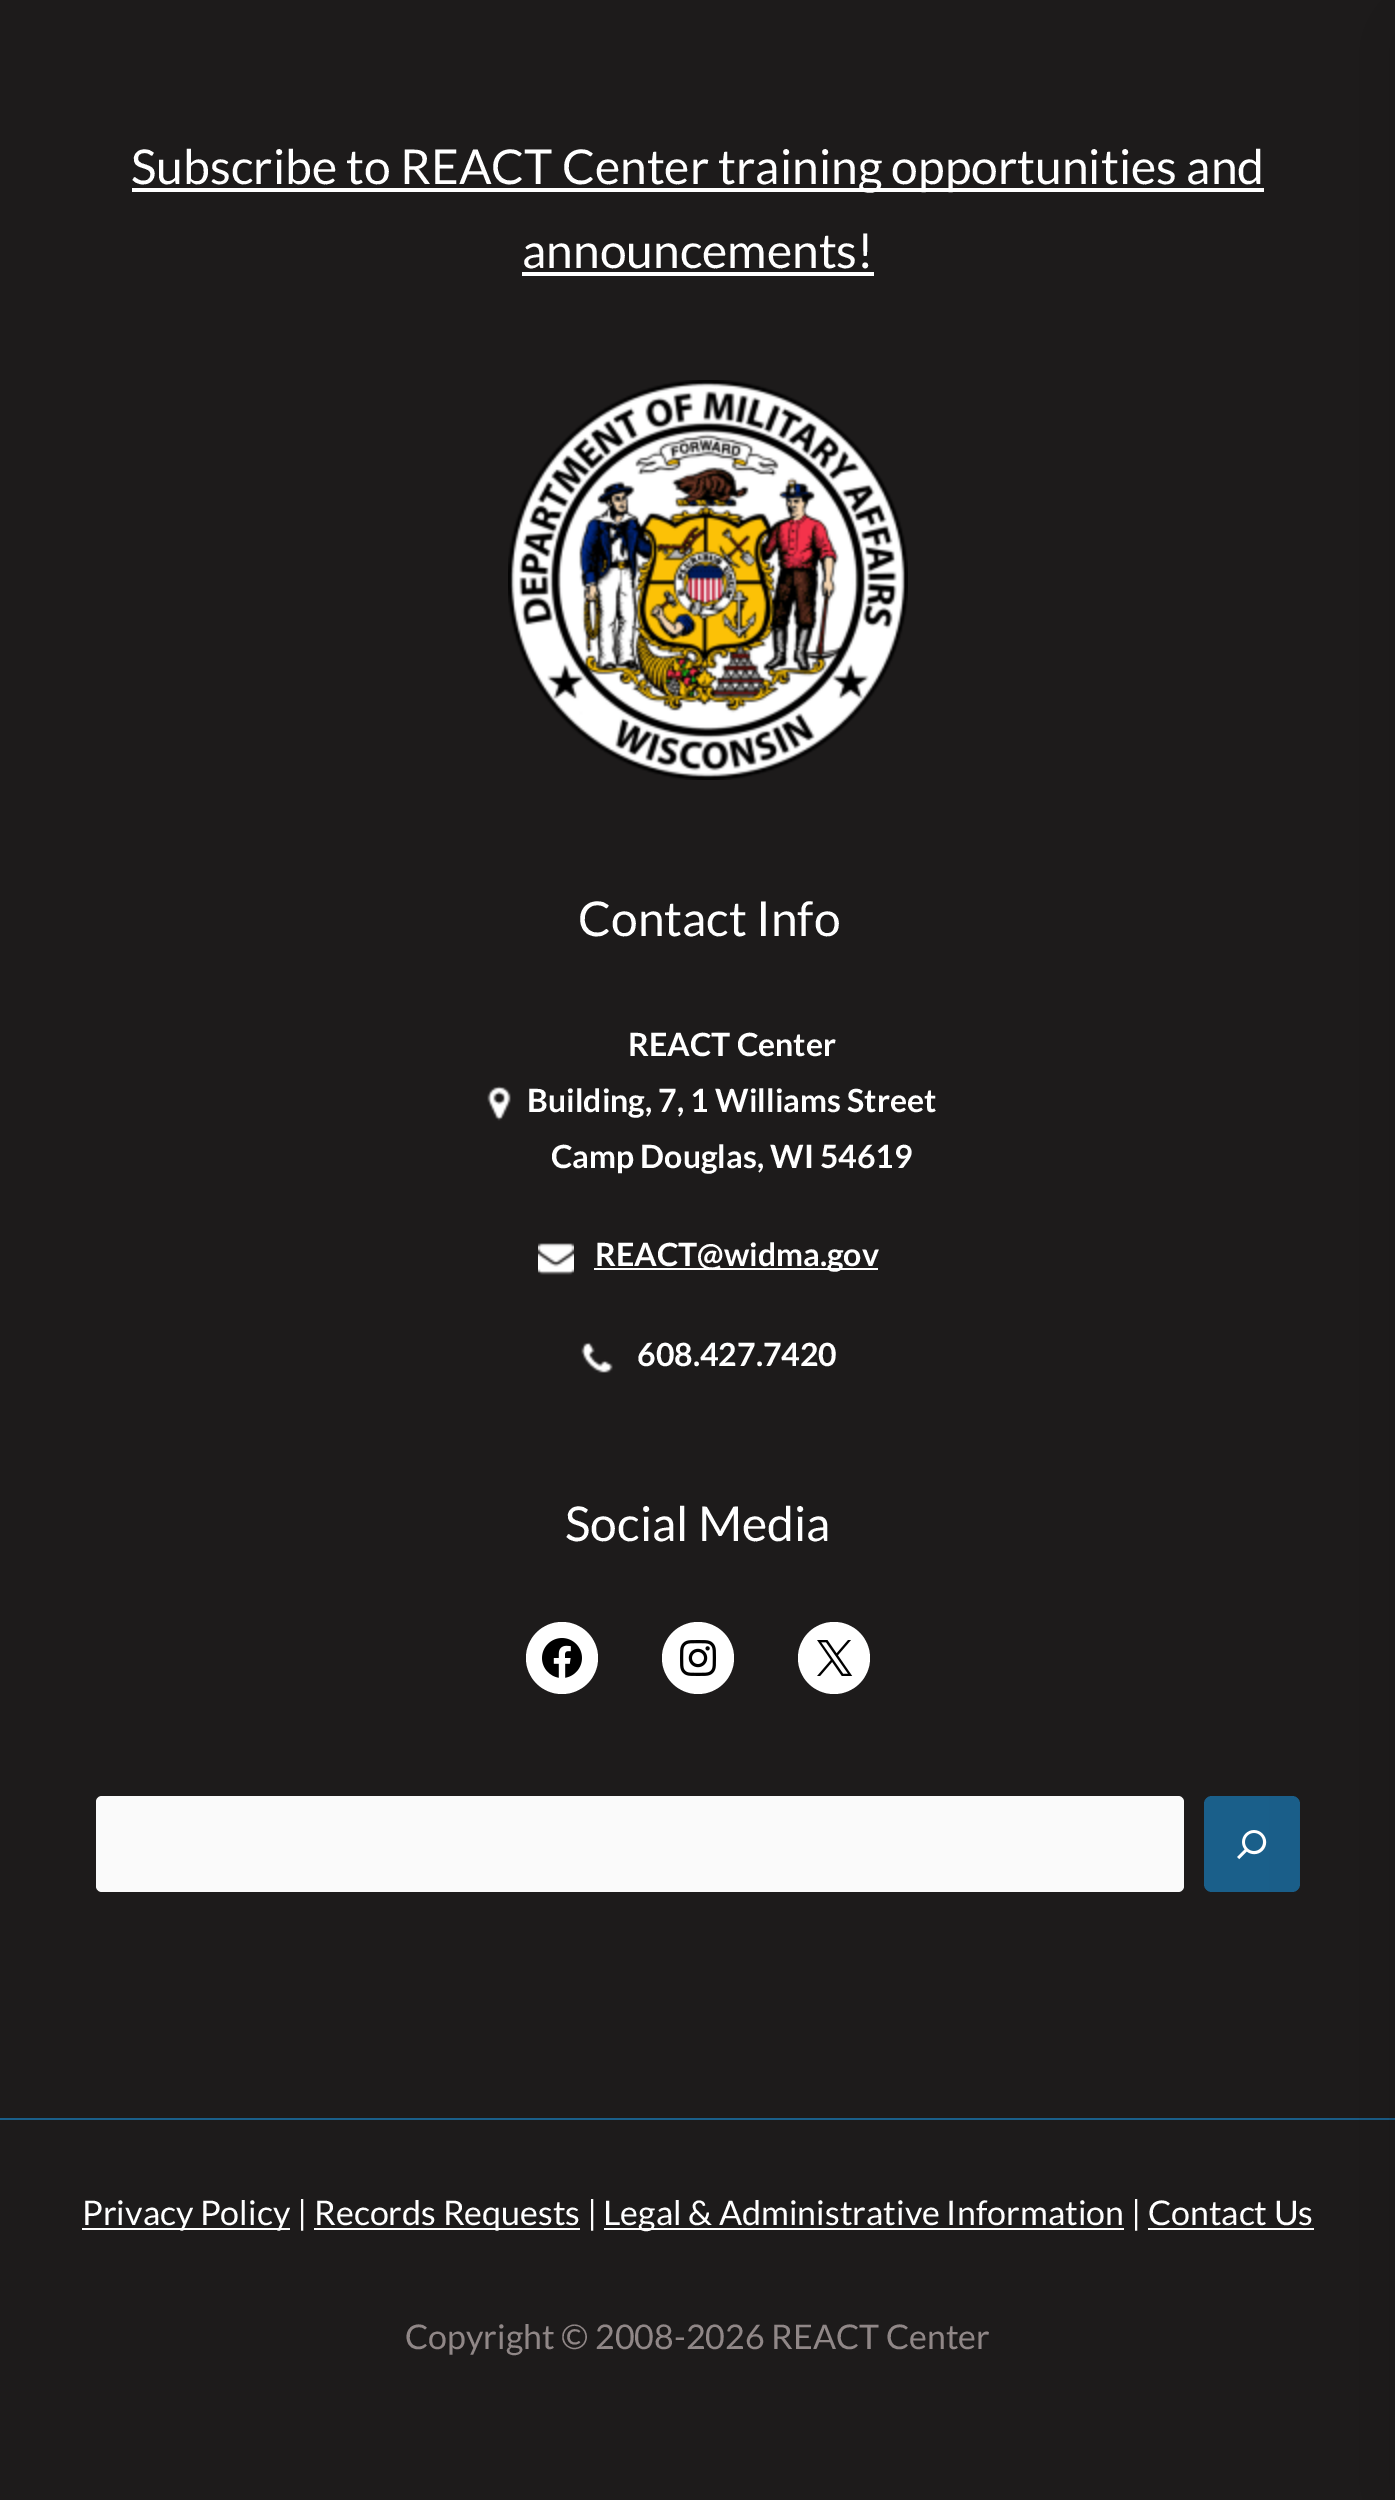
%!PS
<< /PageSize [1395 2500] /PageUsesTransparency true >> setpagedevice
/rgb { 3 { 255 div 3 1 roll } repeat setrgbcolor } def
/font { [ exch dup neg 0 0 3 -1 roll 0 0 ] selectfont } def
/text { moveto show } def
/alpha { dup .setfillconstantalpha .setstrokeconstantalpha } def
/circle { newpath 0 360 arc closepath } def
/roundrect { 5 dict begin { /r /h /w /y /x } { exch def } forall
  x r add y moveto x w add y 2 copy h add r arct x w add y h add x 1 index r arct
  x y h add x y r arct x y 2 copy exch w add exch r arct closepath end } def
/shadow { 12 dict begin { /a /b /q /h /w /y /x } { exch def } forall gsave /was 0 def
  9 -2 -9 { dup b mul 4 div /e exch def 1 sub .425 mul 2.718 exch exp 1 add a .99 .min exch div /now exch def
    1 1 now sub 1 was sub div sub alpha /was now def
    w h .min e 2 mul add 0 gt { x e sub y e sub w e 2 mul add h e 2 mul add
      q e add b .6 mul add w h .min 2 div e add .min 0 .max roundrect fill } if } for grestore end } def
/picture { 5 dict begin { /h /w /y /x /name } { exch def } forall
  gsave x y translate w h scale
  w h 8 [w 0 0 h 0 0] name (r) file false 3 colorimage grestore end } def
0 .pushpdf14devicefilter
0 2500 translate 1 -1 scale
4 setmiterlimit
29 27 27 rgb
0 0 1395 2500 rectfill
255 255 255 rgb
132 188 1132 4 rectfill
26 95 138 rgb
1204 1796 96 96 8 roundrect fill
(img_08.rgb) 1237 1830 30 30 picture
0 2118 1395 2 rectfill
255 255 255 rgb
1148 2228 166 2 rectfill
0 0 0 rgb
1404 20 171 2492 0 60 0.2 shadow
255 255 255 rgb
522 272 352 4 rectfill
(img_01.rgb) 508 380 400 400 picture
(img_02.rgb) 487 1086 24 35 picture
(img_03.rgb) 538 1243 36 32 picture
594 1268 284 2 rectfill
(img_04.rgb) 581 1342 32 31 picture
562 1658 36 circle fill
(img_05.rgb) 542 1638 40 40 picture
698 1658 36 circle fill
(img_06.rgb) 680 1640 36 36 picture
834 1658 36 circle fill
(img_07.rgb) 817 1640 36 36 picture
250 250 250 rgb
96 1796 1088 96 6 roundrect fill
255 255 255 rgb
82 2228 208 2 rectfill
314 2228 266 2 rectfill
604 2228 520 2 rectfill
/Lato-Regular 48 font
(Subscribe to REACT Center training opportunities and) 131 184 text
(announcements!) 522 268 text
(Contact Info) 578 936 text
/Lato-Bold 32 font
(REACT Center) 628 1056 text
(Building, 7, 1 Williams Street) 527 1112 text
(Camp Douglas, WI 54619) 551 1168 text
(REACT@widma.gov) 595 1266 text
(608.427.7420) 637 1366 text
/Lato-Regular 48 font
(Social Media) 565 1541 text
/Lato-Regular 34 font
(Privacy Policy |) 82 2225 text
(Records Requests |) 314 2225 text
(Legal & Administrative Information | Contact Us) 603 2225 text
144 135 135 rgb
(Copyright © 2008-2026 REACT Center) 405 2349 text
.poppdf14devicefilter showpage
